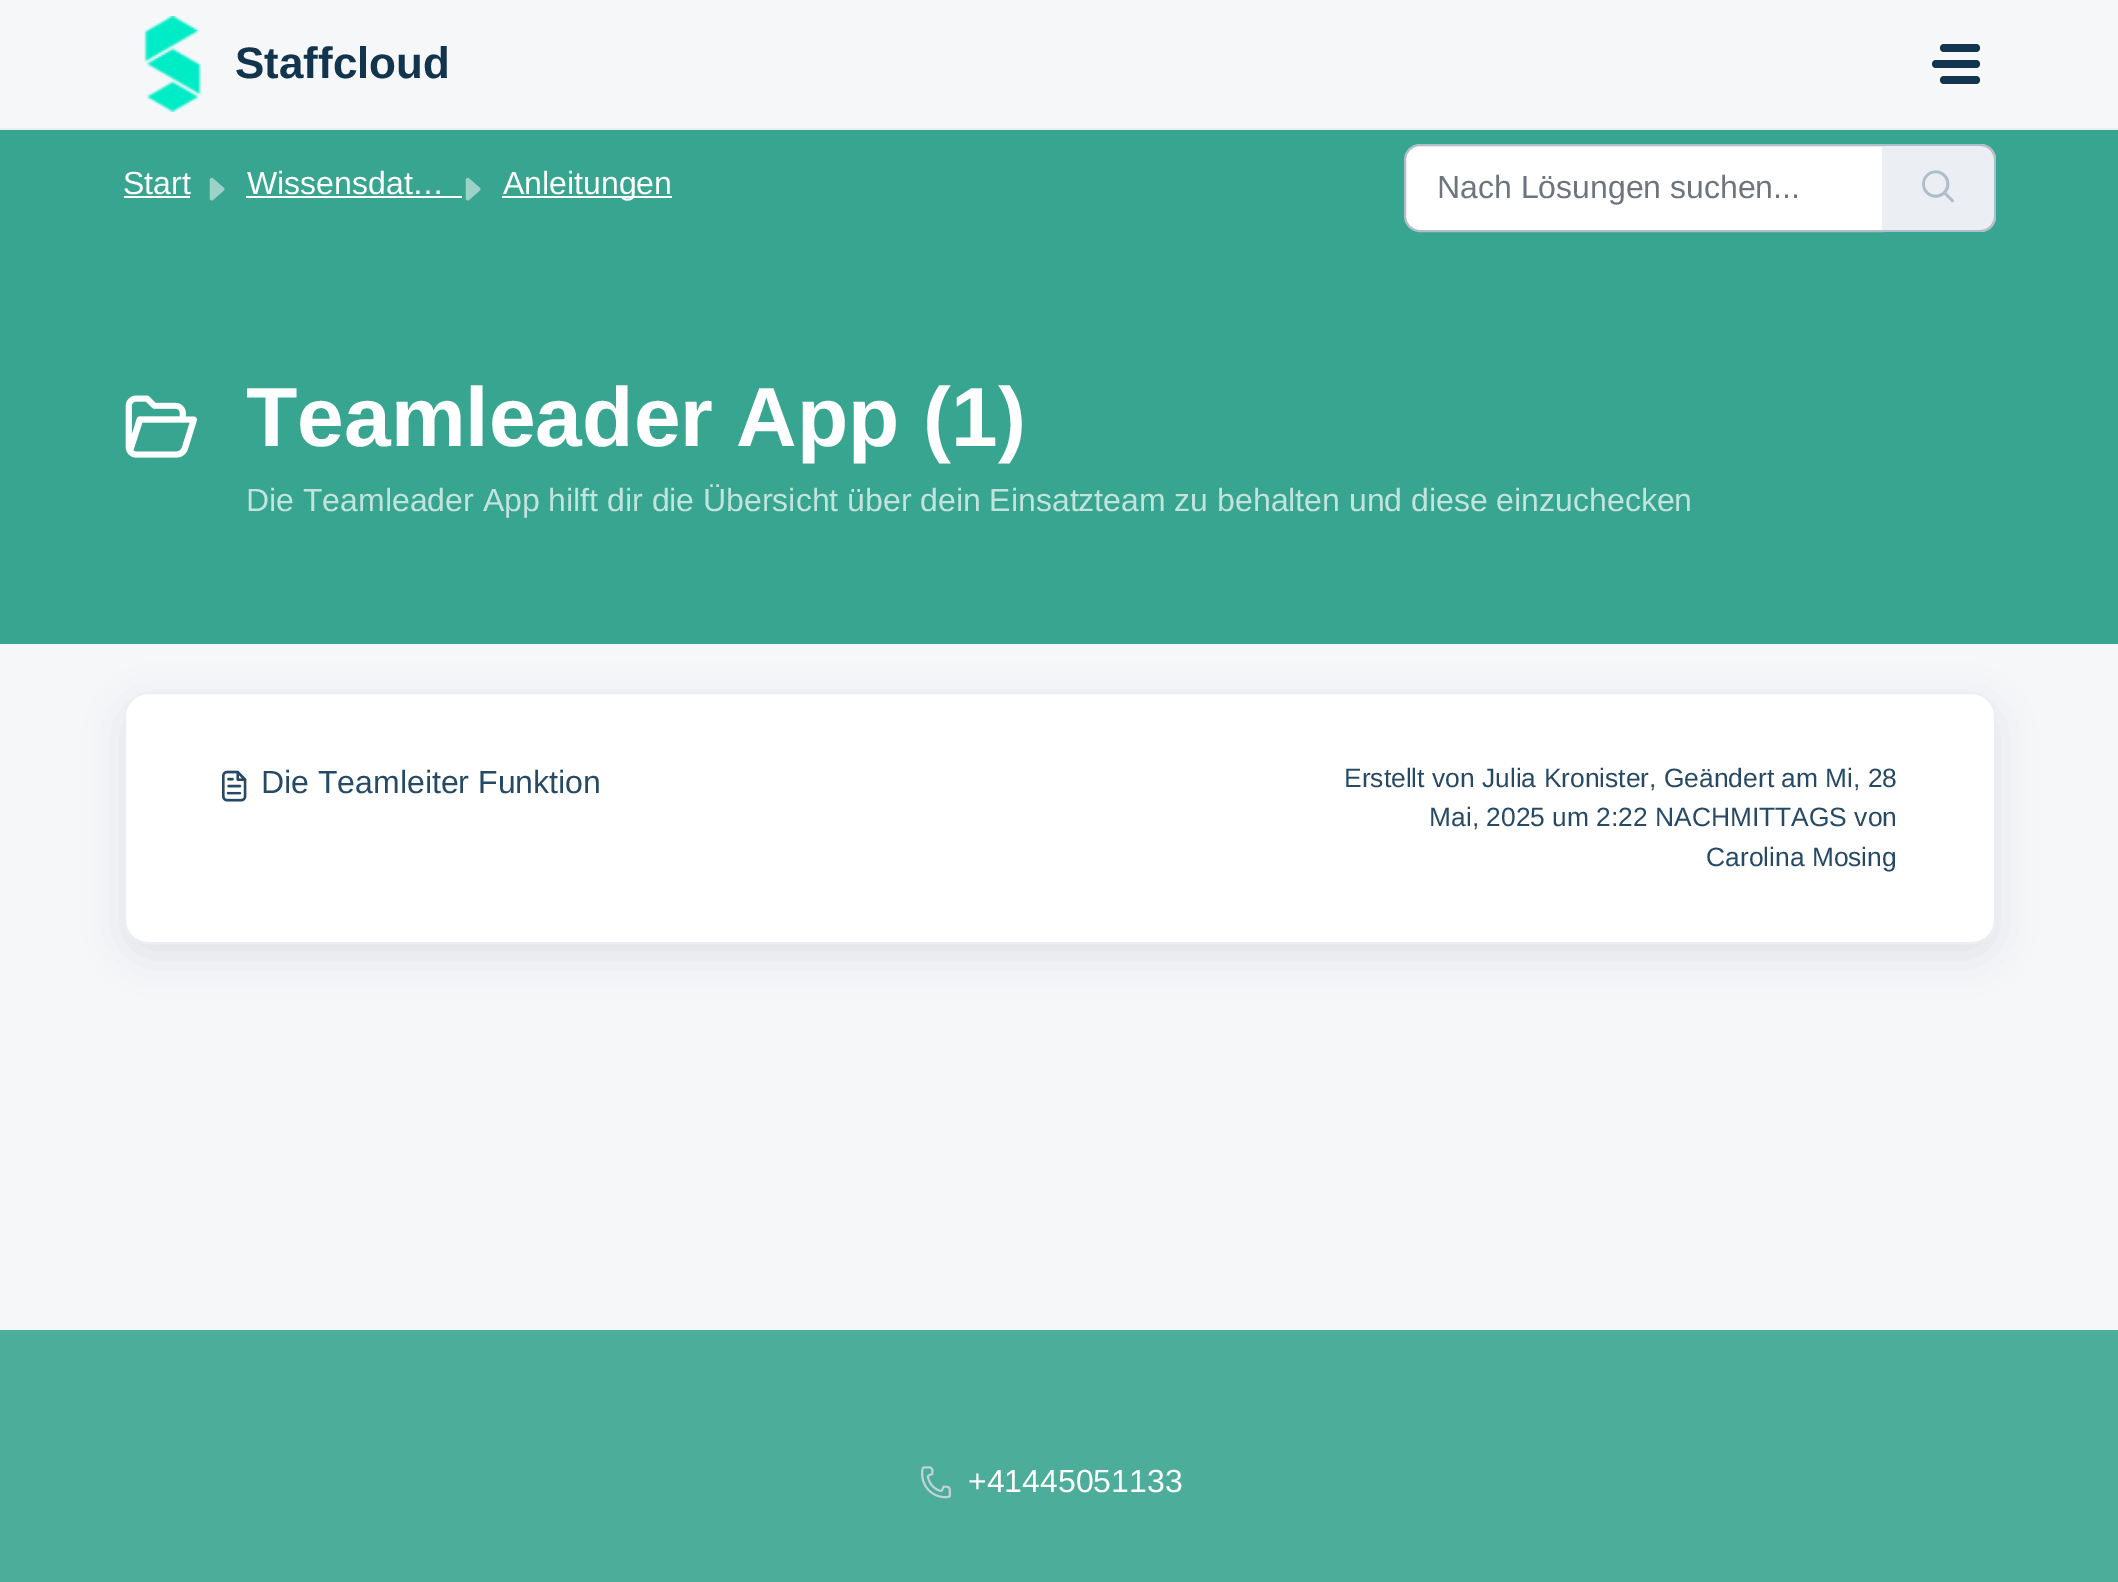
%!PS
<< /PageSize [2118 1582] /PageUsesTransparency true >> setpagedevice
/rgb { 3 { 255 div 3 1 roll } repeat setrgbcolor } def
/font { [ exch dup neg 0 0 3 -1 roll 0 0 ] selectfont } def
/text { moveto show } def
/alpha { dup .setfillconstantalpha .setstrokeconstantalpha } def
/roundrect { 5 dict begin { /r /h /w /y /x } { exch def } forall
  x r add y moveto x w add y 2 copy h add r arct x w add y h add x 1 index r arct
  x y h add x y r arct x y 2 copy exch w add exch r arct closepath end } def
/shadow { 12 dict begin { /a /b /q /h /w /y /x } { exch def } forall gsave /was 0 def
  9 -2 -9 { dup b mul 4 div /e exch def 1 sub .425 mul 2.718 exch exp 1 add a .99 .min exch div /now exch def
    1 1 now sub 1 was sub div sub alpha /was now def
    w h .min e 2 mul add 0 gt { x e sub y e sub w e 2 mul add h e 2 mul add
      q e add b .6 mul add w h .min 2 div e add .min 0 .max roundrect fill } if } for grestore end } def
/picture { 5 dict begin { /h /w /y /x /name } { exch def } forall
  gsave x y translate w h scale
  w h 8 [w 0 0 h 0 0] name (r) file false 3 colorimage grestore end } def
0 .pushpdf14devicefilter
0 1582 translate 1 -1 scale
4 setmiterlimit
245 247 249 rgb
0 0 2118 1582 rectfill
235 239 243 rgb
0 128 2118 2 rectfill
(img_01.rgb) 144 16 58 96 picture
18 52 77 rgb
1940 44 40 8 4 roundrect fill
1932 60 48 8 4 roundrect fill
1940 76 40 8 4 roundrect fill
56 165 144 rgb
0 130 2118 514 rectfill
255 255 255 rgb
124 196 66 2 rectfill
(img_02.rgb) 209 177 16 24 picture
246 196 216 2 rectfill
(img_02.rgb) 465 177 16 24 picture
502 196 170 2 rectfill
1420 145 moveto 463 0 rlineto 0 86 rlineto -463 0 rlineto -8.5 0 -15 -6.5 -15 -15 rcurveto 0 -56 rlineto 0 -8.5 6.5 -15 15 -15 rcurveto closepath gsave fill grestore
177 189 200 rgb
2 setlinewidth
stroke
235 239 243 rgb
1882 144 moveto 98 0 rlineto 9 0 16 7 16 16 rcurveto 0 56 rlineto 0 9 -7 16 -16 16 rcurveto -98 0 rlineto closepath fill
177 189 200 rgb
1882 144 moveto 98 0 rlineto 9 0 16 7 16 16 rcurveto 0 56 rlineto 0 9 -7 16 -16 16 rcurveto -98 0 rlineto closepath 1882 146 moveto 98 0 rlineto 8 0 14 6 14 14 rcurveto 0 56 rlineto 0 8 -6 14 -14 14 rcurveto -98 0 rlineto closepath eofill
(img_03.rgb) 1922 170 32 33 picture
(img_04.rgb) 125 395 72 63 picture
39 49 58 rgb
124 704 1872 252 24 19 0.1 shadow
255 255 255 rgb
125 693 1870 250 23 roundrect gsave fill grestore
235 239 243 rgb
stroke
(img_05.rgb) 222 770 25 32 picture
75 173 154 rgb
0 1330 2118 252 rectfill
(img_06.rgb) 921 1466 30 33 picture
/LiberationSans-Bold 44 font
18 52 77 rgb
(Staffcloud) 235 78 text
/LiberationSans-Regular 32 font
255 255 255 rgb
(Start) 123 194 text
(Wissensdat…) 247 194 text
(Anleitungen) 503 194 text
108 117 125 rgb
(Nach Lösungen suchen...) 1437 198 text
/LiberationSans-Bold 84 font
255 255 255 rgb
(Teamleader App \(1\)) 246 446 text
/LiberationSans-Regular 32 font
195 228 222 rgb
(Die Teamleader App hilft dir die Übersicht über dein Einsatzteam zu behalten und diese einzuchecken) 246 511 text
38 73 102 rgb
(Die Teamleiter Funktion) 261 793 text
/LiberationSans-Regular 26.4 font
(Erstellt von Julia Kronister, Geändert am Mi, 28) 1344 787 text
(Mai, 2025 um 2:22 NACHMITTAGS von) 1429 826 text
(Carolina Mosing) 1706 866 text
/LiberationSans-Regular 32 font
255 255 255 rgb
(+41445051133) 968 1492 text
.poppdf14devicefilter showpage
